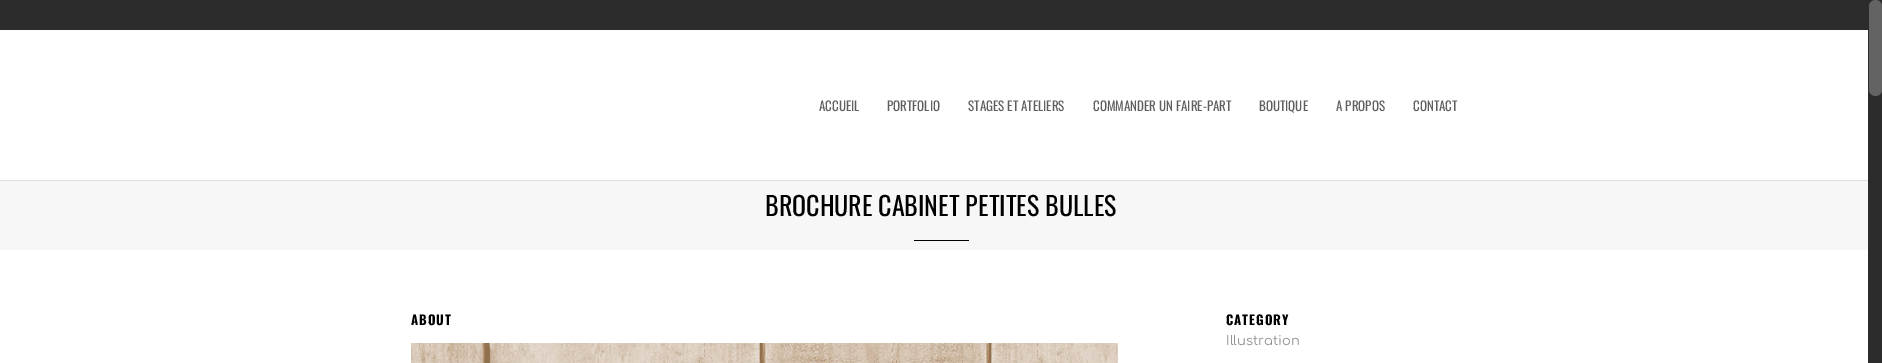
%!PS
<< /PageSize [1882 363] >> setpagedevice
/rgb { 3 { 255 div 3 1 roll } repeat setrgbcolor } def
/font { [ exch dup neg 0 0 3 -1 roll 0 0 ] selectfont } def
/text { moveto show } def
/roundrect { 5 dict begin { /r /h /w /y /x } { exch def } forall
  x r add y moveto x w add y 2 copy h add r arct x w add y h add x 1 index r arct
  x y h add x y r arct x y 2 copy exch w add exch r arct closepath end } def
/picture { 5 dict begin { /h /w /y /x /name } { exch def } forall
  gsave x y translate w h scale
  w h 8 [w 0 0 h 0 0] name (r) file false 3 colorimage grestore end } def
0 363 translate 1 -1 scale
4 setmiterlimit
255 255 255 rgb
0 0 1882 363 rectfill
222 222 222 rgb
0 180 1868 1 rectfill
44 44 44 rgb
0 0 1868 30 rectfill
247 247 247 rgb
0 181 1868 69 rectfill
0 0 0 rgb
914 240 55 1 rectfill
(img_01.rgb) 411 343 707 20 picture
44 44 44 rgb
1868 0 14 363 rectfill
99 99 99 rgb
1869 0 13 96 6.5 roundrect fill
/Oswald-Regular 13 font
95 95 95 rgb
(ACCUEIL) 819 111 text
(PORTFOLIO) 887 111 text
(STAGES ET ATELIERS) 968 111 text
(COMMANDER UN FAIRE-PART) 1093 111 text
(BOUTIQUE) 1259 111 text
(A PROPOS) 1336 111 text
(CONTACT) 1413 111 text
/Oswald-Regular 26 font
0 0 0 rgb
(BROCHURE CABINET PETITES BULLES) 765 216 text
/Oswald-Bold 13 font
411 325 moveto 1 0 (ABOUT) ashow
1226 325 moveto 1 0 (CATEGORY) ashow
/Comfortaa-Regular 13 font
146 146 146 rgb
(Illustration) 1226 345 text
showpage
